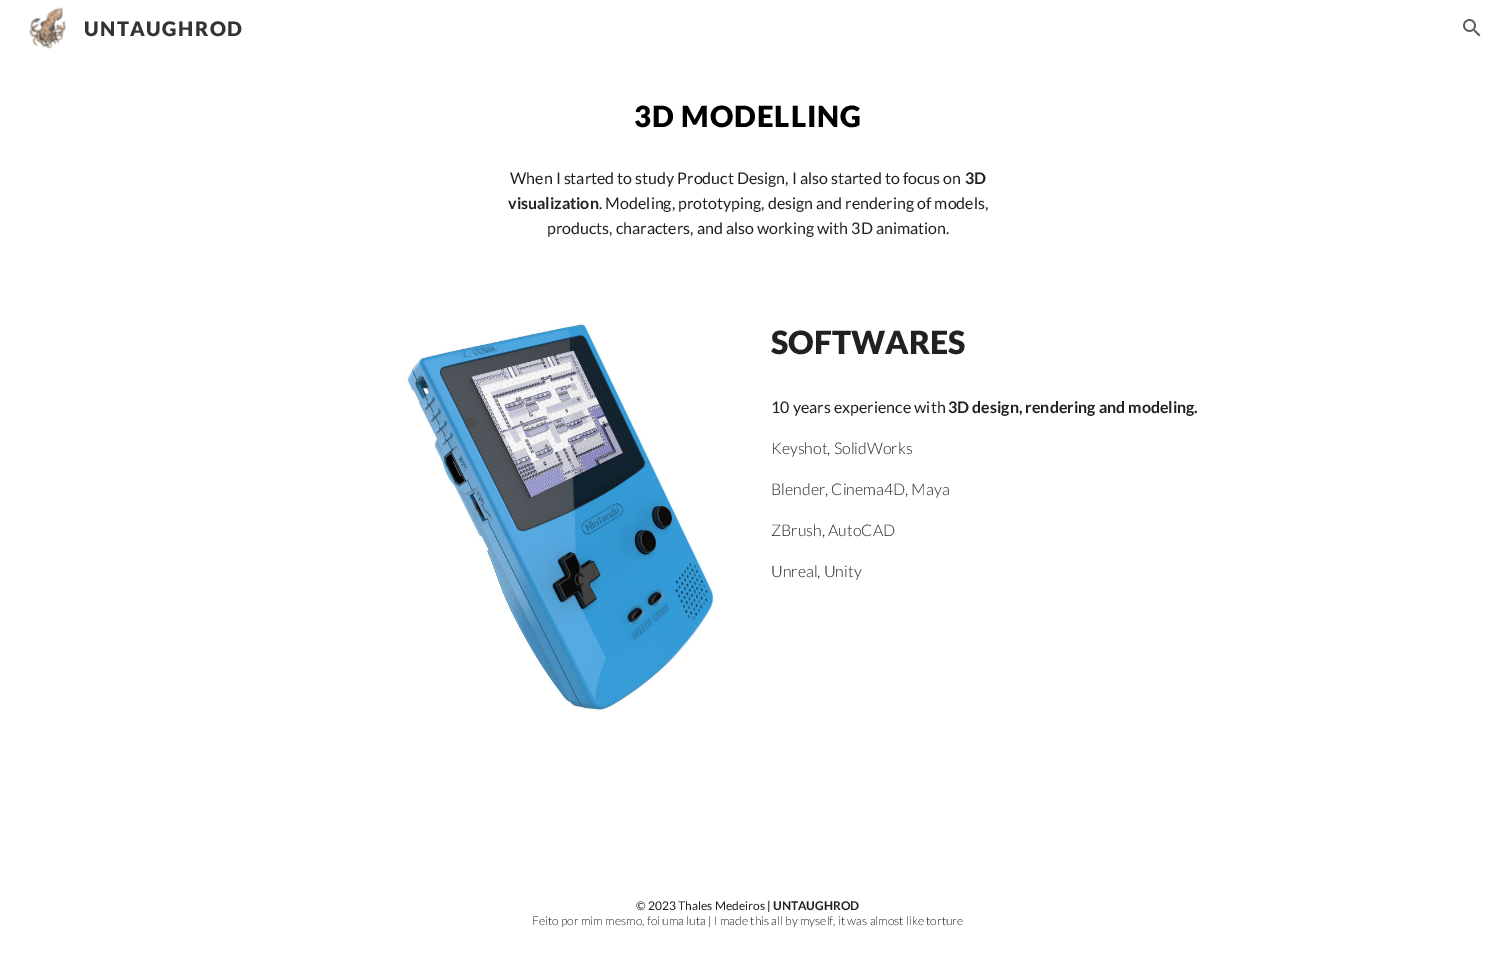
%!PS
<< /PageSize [1496 960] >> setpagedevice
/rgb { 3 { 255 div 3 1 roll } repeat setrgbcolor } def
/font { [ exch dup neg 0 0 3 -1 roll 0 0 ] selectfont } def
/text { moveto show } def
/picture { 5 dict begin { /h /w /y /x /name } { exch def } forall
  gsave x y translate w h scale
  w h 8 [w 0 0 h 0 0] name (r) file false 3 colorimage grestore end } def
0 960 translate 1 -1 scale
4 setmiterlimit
255 255 255 rgb
0 0 1496 960 rectfill
(img_01.rgb) 29 7 37 42 picture
(img_02.rgb) 1463 19 18 18 picture
(img_03.rgb) 406 323 309 390 picture
/Lato-Black 20 font
51 51 51 rgb
84 36 moveto 1.5 0 (UNTAUGHROD) ashow
/Lato-Black 29.25 font
0 0 0 rgb
634 127 moveto 1 0 (3D MODELLING) ashow
/Lato-Regular 16 font
33 33 33 rgb
(When I started to study Product Design, I also started to focus on) 510 184 text
/Lato-Bold 16 font
(3D) 965 184 text
(visualization) 508 209 text
/Lato-Regular 16 font
(. Modeling, prototyping, design and rendering of models,) 599 209 text
(products, characters, and also working with 3D animation.) 547 234 text
/Lato-Black 32 font
(SOFTWARES) 771 354 text
/Lato-Regular 16 font
(10 years experience with) 771 413 text
/Lato-Bold 16 font
(3D design, rendering and modeling.) 948 413 text
/Lato-Light 16 font
(Keyshot, SolidWorks) 771 454 text
(Blender, Cinema4D, Maya) 771 495 text
(ZBrush, AutoCAD) 771 536 text
(Unreal, Unity) 771 577 text
/Lato-Regular 12 font
(© 2023 Thales Medeiros |) 636 910 text
/Lato-Bold 12 font
(UNTAUGHROD) 773 910 text
/Lato-Light 12 font
(Feito por mim mesmo, foi uma luta | I made this all by myself, it was almost like torture) 532 925 text
showpage
